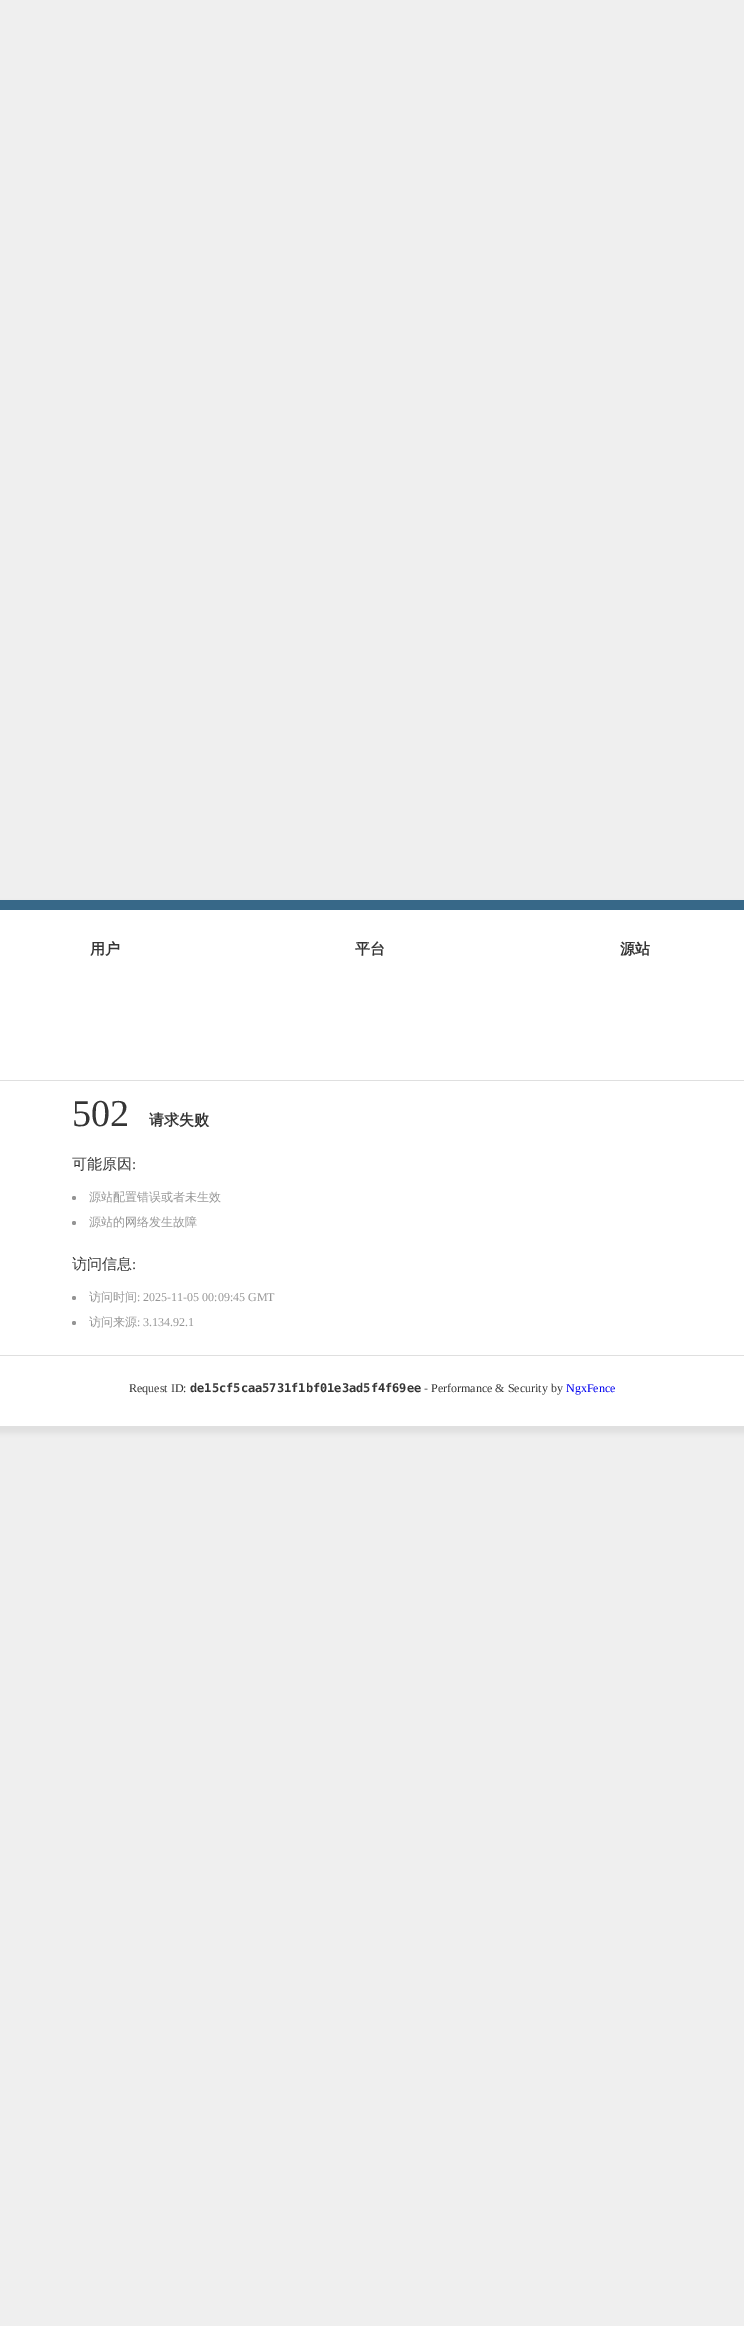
%!PS
<< /PageSize [744 2326] /PageUsesTransparency true >> setpagedevice
/rgb { 3 { 255 div 3 1 roll } repeat setrgbcolor } def
/font { [ exch dup neg 0 0 3 -1 roll 0 0 ] selectfont } def
/text { moveto show } def
/alpha { dup .setfillconstantalpha .setstrokeconstantalpha } def
/circle { newpath 0 360 arc closepath } def
/roundrect { 5 dict begin { /r /h /w /y /x } { exch def } forall
  x r add y moveto x w add y 2 copy h add r arct x w add y h add x 1 index r arct
  x y h add x y r arct x y 2 copy exch w add exch r arct closepath end } def
/shadow { 12 dict begin { /a /b /q /h /w /y /x } { exch def } forall gsave /was 0 def
  9 -2 -9 { dup b mul 4 div /e exch def 1 sub .425 mul 2.718 exch exp 1 add a .99 .min exch div /now exch def
    1 1 now sub 1 was sub div sub alpha /was now def
    w h .min e 2 mul add 0 gt { x e sub y e sub w e 2 mul add h e 2 mul add
      q e add b .6 mul add w h .min 2 div e add .min 0 .max roundrect fill } if } for grestore end } def
0 .pushpdf14devicefilter
0 2326 translate 1 -1 scale
4 setmiterlimit
239 239 239 rgb
0 0 744 2326 rectfill
223 223 223 rgb
-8 903 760 530 0 2.5 1 shadow
255 255 255 rgb
0 910 744 516 rectfill
55 104 136 rgb
0 900 744 10 rectfill
223 223 223 rgb
0 1080 744 1 rectfill
149 149 149 rgb
74 1198 2 circle fill
74 1223 2 circle fill
74 1298 2 circle fill
74 1323 2 circle fill
223 223 223 rgb
0 1355 744 1 rectfill
/WenQuanYiZenHei-Bold 15 font
53 53 53 rgb
(用户) 90 954 text
(平台) 355 954 text
(源站) 620 954 text
/LiberationSerif-Regular 38 font
(502) 72 1126 text
/WenQuanYiZenHei-Bold 15 font
(请求失败) 149 1125 text
/WenQuanYiZenHei-Medium 15 font
(可能原因) 72 1169 text
/LiberationSerif-Regular 15 font
(:) 132 1169 text
/WenQuanYiZenHei-Medium 12 font
149 149 149 rgb
(源站配置错误或者未生效) 89 1201 text
(源站的网络发生故障) 89 1226 text
/WenQuanYiZenHei-Medium 15 font
53 53 53 rgb
(访问信息) 72 1269 text
/LiberationSerif-Regular 15 font
(:) 132 1269 text
/WenQuanYiZenHei-Medium 12 font
149 149 149 rgb
(访问时间) 89 1301 text
/LiberationSerif-Regular 12 font
(: 2025-11-05 00:09:45 GMT) 137 1301 text
/WenQuanYiZenHei-Medium 12 font
(访问来源) 89 1326 text
/LiberationSerif-Regular 12 font
(: 3.134.92.1) 137 1326 text
53 53 53 rgb
(Request ID:) 129 1392 text
/DejaVuSansMono-Bold 12 font
(de15cf5caa5731f1bf01e3ad5f4f69ee) 190 1392 text
/LiberationSerif-Regular 12 font
(- Performance & Security by) 424 1392 text
0 0 238 rgb
(NgxFence) 566 1392 text
.poppdf14devicefilter showpage
